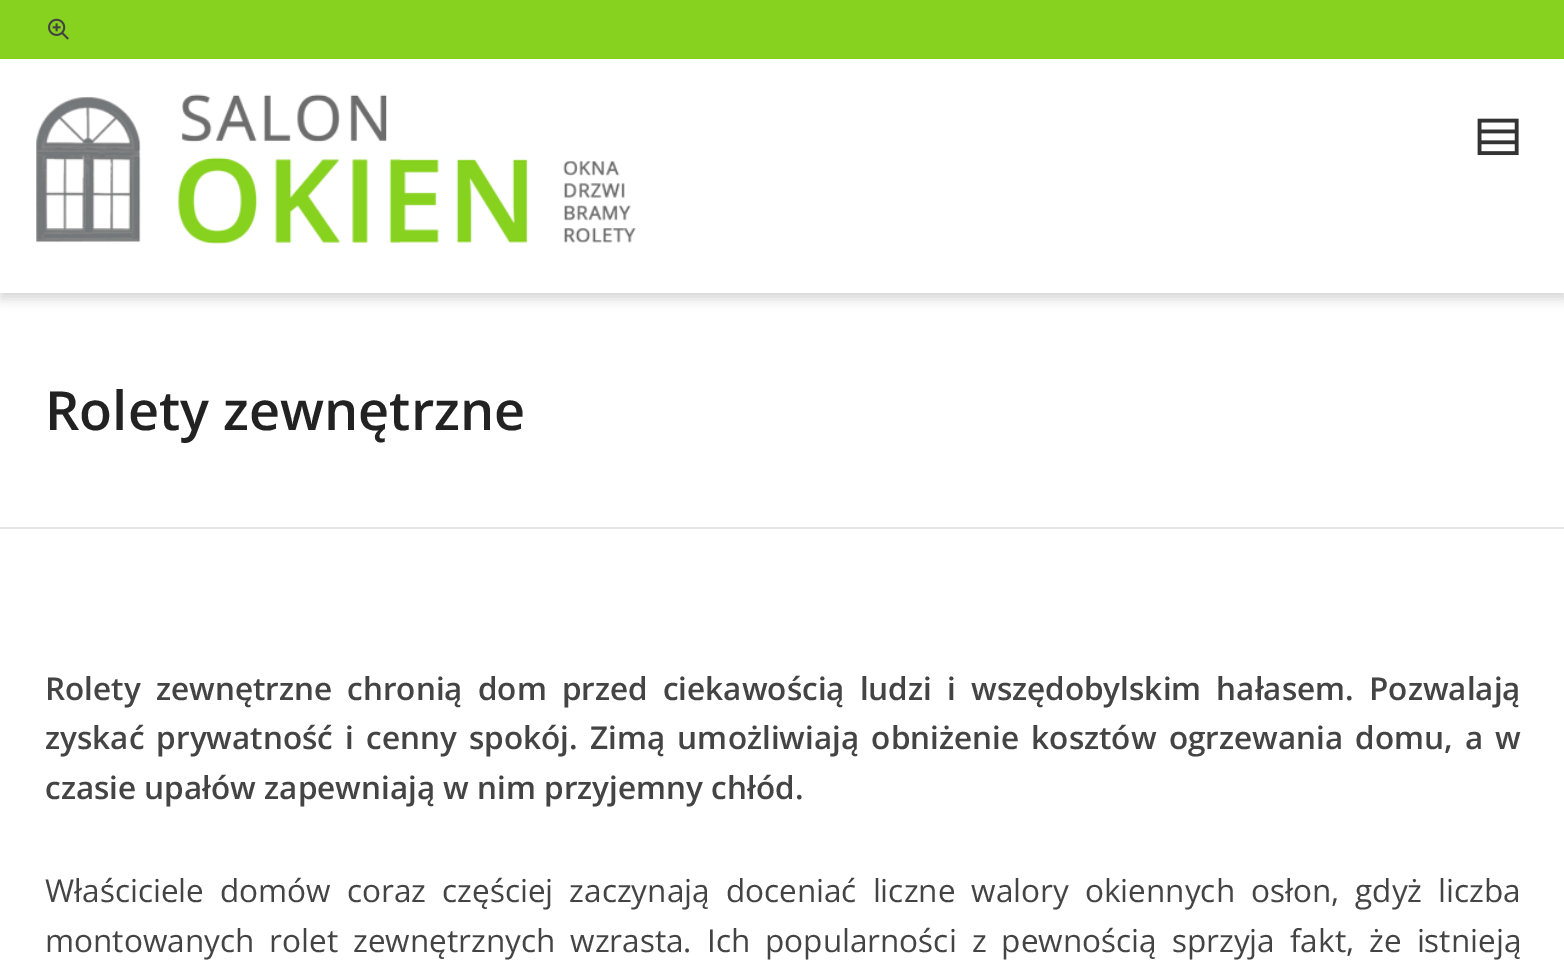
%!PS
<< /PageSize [1564 977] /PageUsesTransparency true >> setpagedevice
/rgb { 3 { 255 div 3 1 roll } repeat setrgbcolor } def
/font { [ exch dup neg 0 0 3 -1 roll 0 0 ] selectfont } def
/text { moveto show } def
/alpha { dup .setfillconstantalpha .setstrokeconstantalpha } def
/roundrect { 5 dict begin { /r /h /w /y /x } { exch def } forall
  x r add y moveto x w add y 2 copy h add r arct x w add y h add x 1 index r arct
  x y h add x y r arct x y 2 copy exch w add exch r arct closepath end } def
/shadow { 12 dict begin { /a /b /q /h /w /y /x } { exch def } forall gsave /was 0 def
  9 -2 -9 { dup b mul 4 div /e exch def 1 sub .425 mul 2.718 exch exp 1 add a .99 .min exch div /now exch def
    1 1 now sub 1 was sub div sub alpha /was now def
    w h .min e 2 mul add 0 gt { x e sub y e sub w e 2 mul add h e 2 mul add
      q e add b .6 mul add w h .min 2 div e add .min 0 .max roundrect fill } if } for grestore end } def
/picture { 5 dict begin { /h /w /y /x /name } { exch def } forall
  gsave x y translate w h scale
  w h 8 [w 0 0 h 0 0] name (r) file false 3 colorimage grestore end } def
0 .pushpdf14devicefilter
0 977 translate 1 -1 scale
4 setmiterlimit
255 255 255 rgb
0 0 1564 977 rectfill
0 0 0 rgb
0 65 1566 234 0 5.5 0.1 shadow
0 65 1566 234 0 5.5 0.05 shadow
135 209 31 rgb
0 0 1564 59 rectfill
(img_01.rgb) 48 18 21 22 picture
255 255 255 rgb
0 59 1564 234 rectfill
(img_02.rgb) 36 94 600 150 picture
(img_03.rgb) 1477 118 42 38 picture
228 228 228 rgb
0 527 1564 2 rectfill
/OpenSans-SemiBold 54 font
34 34 34 rgb
(Rolety zewnętrzne) 45 430 text
/OpenSans-SemiBold 31.5 font
68 68 68 rgb
45 700 moveto 6.9 0 32 (Rolety zewnętrzne chronią dom przed ciekawością ludzi i wszędobylskim hałasem. Pozwalają) widthshow
45 749 moveto 4 0 32 (zyskać prywatność i cenny spokój. Zimą umożliwiają obniżenie kosztów ogrzewania domu, a w) widthshow
(czasie upałów zapewniają w nim przyjemny chłód.) 45 799 text
/OpenSans-Regular 31.5 font
45 902 moveto 7.9 0 32 (Właściciele domów coraz częściej zaczynają doceniać liczne walory okiennych osłon, gdyż liczba) widthshow
45 952 moveto 6.9 0 32 (montowanych rolet zewnętrznych wzrasta. Ich popularności z pewnością sprzyja fakt, że istnieją) widthshow
.poppdf14devicefilter showpage
